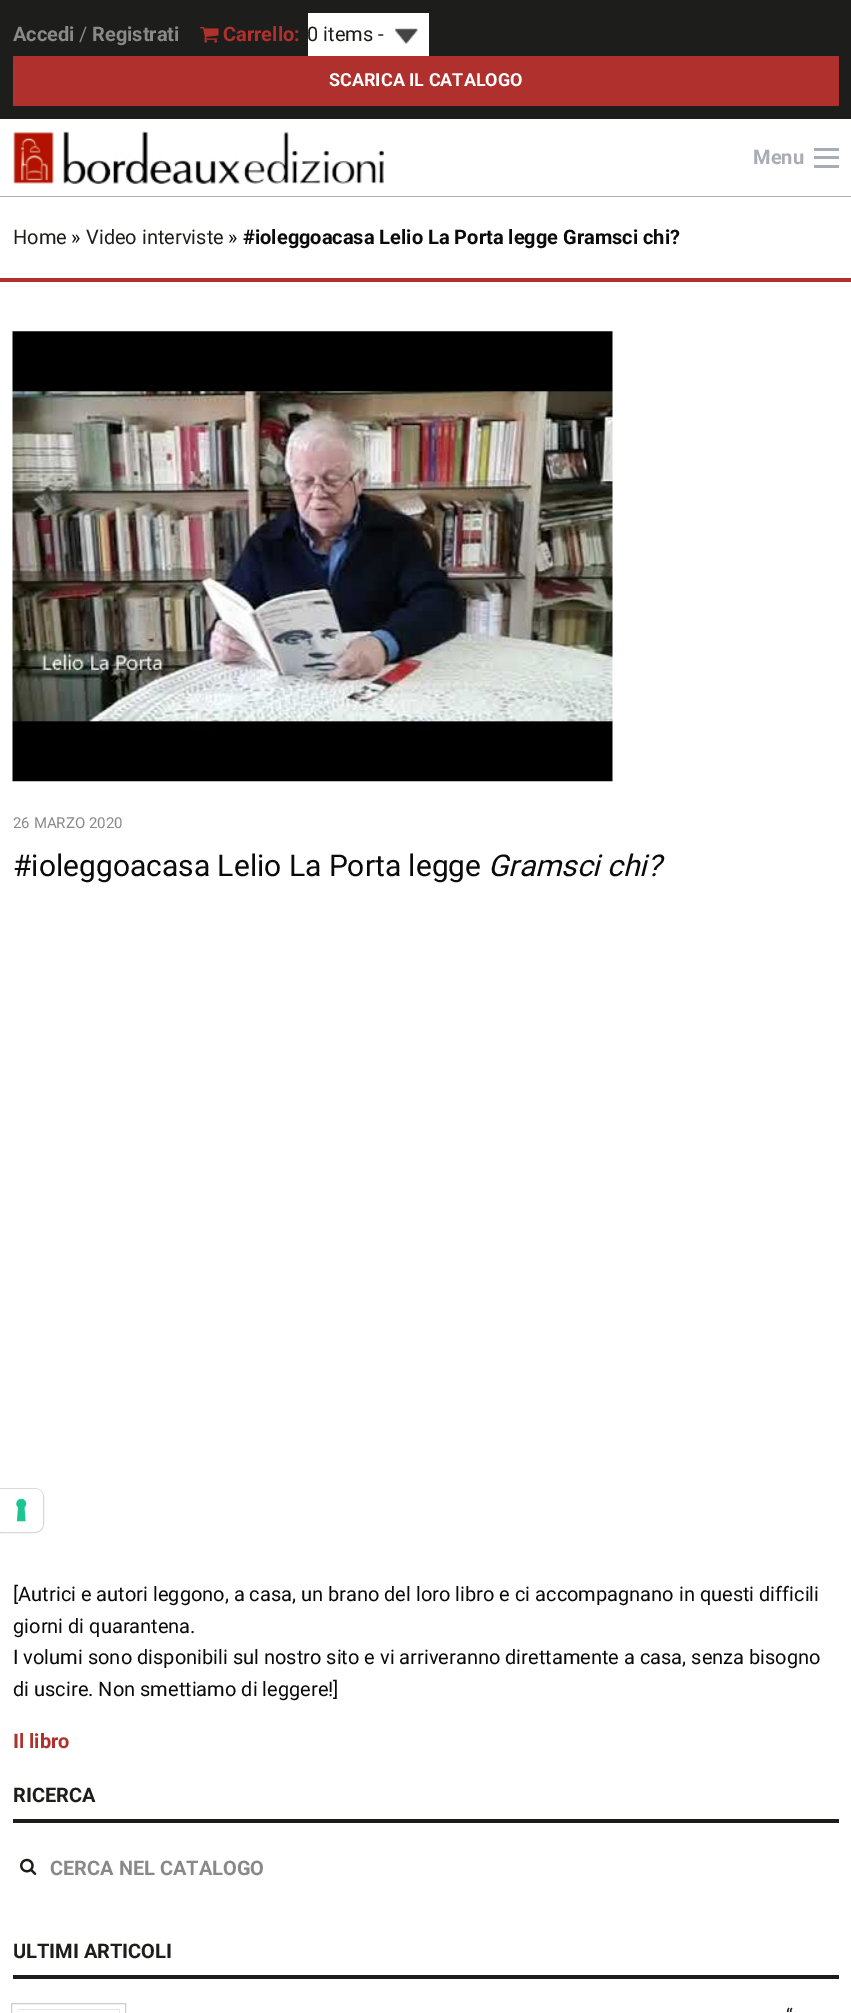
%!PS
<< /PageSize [851 2013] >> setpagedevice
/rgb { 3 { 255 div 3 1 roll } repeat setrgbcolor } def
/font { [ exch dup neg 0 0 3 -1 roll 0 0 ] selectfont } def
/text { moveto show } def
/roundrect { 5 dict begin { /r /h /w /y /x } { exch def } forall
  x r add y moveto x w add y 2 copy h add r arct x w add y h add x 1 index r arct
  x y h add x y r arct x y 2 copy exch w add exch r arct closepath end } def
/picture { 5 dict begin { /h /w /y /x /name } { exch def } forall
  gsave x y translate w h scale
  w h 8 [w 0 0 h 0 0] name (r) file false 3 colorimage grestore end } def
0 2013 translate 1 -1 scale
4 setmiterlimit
255 255 255 rgb
0 0 851 2013 rectfill
29 29 27 rgb
0 0 851 119 rectfill
(img_01.rgb) 200 26 19 17 picture
255 255 255 rgb
308 13 121 43 rectfill
(img_02.rgb) 394 28 24 16 picture
175 48 45 rgb
13 56 826 50 1 roundrect fill
(img_03.rgb) 13 131 371 53 picture
167 172 181 rgb
814 165 25 3 rectfill
814 156 25 3 rectfill
814 148 25 3 rectfill
0 196 851 1 rectfill
175 48 45 rgb
0 278 851 4 rectfill
(img_04.rgb) 12 331 601 451 picture
29 29 27 rgb
13 1819 826 4 rectfill
(img_05.rgb) 20 1858 17 17 picture
13 1975 826 4 rectfill
206 206 206 rgb
11.5 2003.5 114 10 rectstroke
229 229 229 rgb
18 2009 102 4 rectfill
254 254 254 rgb
18 2010 101 3 rectfill
217 217 217 rgb
-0.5 1488.5 moveto 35.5 0 rlineto 4.5 0 8.5 4 8.5 8.5 rcurveto 0 27 rlineto 0 4.5 -4 8.5 -8.5 8.5 rcurveto -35.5 0 rlineto closepath stroke
255 255 255 rgb
0 1489 moveto 35 0 rlineto 4.5 0 8 3.5 8 8 rcurveto 0 26 rlineto 0 4.5 -3.5 8 -8 8 rcurveto -35 0 rlineto closepath fill
(img_06.rgb) 16 1498 11 24 picture
/Roboto-Bold 20 font
137 137 137 rgb
(Accedi) 13 41 text
/Roboto-Regular 20 font
(/) 79 41 text
/Roboto-Bold 20 font
(Registrati) 92 41 text
175 48 45 rgb
(Carrello:) 223 41 text
/Roboto-Regular 20 font
29 29 27 rgb
(0 items -) 307 41 text
/Roboto-Bold 18 font
255 255 255 rgb
(SCARICA IL CATALOGO) 329 86 text
/Roboto-Bold 20 font
167 172 181 rgb
(Menu) 753 164 text
/Roboto-Regular 20 font
29 29 27 rgb
(Home) 13 244 text
10 10 10 rgb
(») 71 244 text
29 29 27 rgb
(Video interviste) 86 244 text
10 10 10 rgb
(») 228 244 text
/Roboto-Bold 20 font
(#ioleggoacasa Lelio La Porta legge Gramsci chi?) 243 244 text
/Roboto-Regular 15 font
137 137 137 rgb
(26 MARZO 2020) 13 828 text
/Roboto-Regular 30 font
10 10 10 rgb
(#ioleggoacasa Lelio La Porta legge) 13 876 text
/Roboto-Italic 30 font
(Gramsci chi?) 488 876 text
/Roboto-Regular 20 font
([Autrici e autori leggono, a casa, un brano del loro libro e ci accompagnano in questi difficili) 13 1601 text
(giorni di quarantena.) 13 1633 text
(I volumi sono disponibili sul nostro sito e vi arriveranno direttamente a casa, senza bisogno) 13 1664 text
(di uscire. Non smettiamo di leggere!]) 13 1696 text
/Roboto-Bold 20 font
175 48 45 rgb
(Il libro) 13 1748 text
29 29 27 rgb
(RICERCA) 13 1802 text
137 137 137 rgb
(CERCA NEL CATALOGO) 50 1875 text
29 29 27 rgb
(ULTIMI ARTICOLI) 13 1958 text
/Roboto-Regular 19 font
(“) 786 2022 text
showpage
